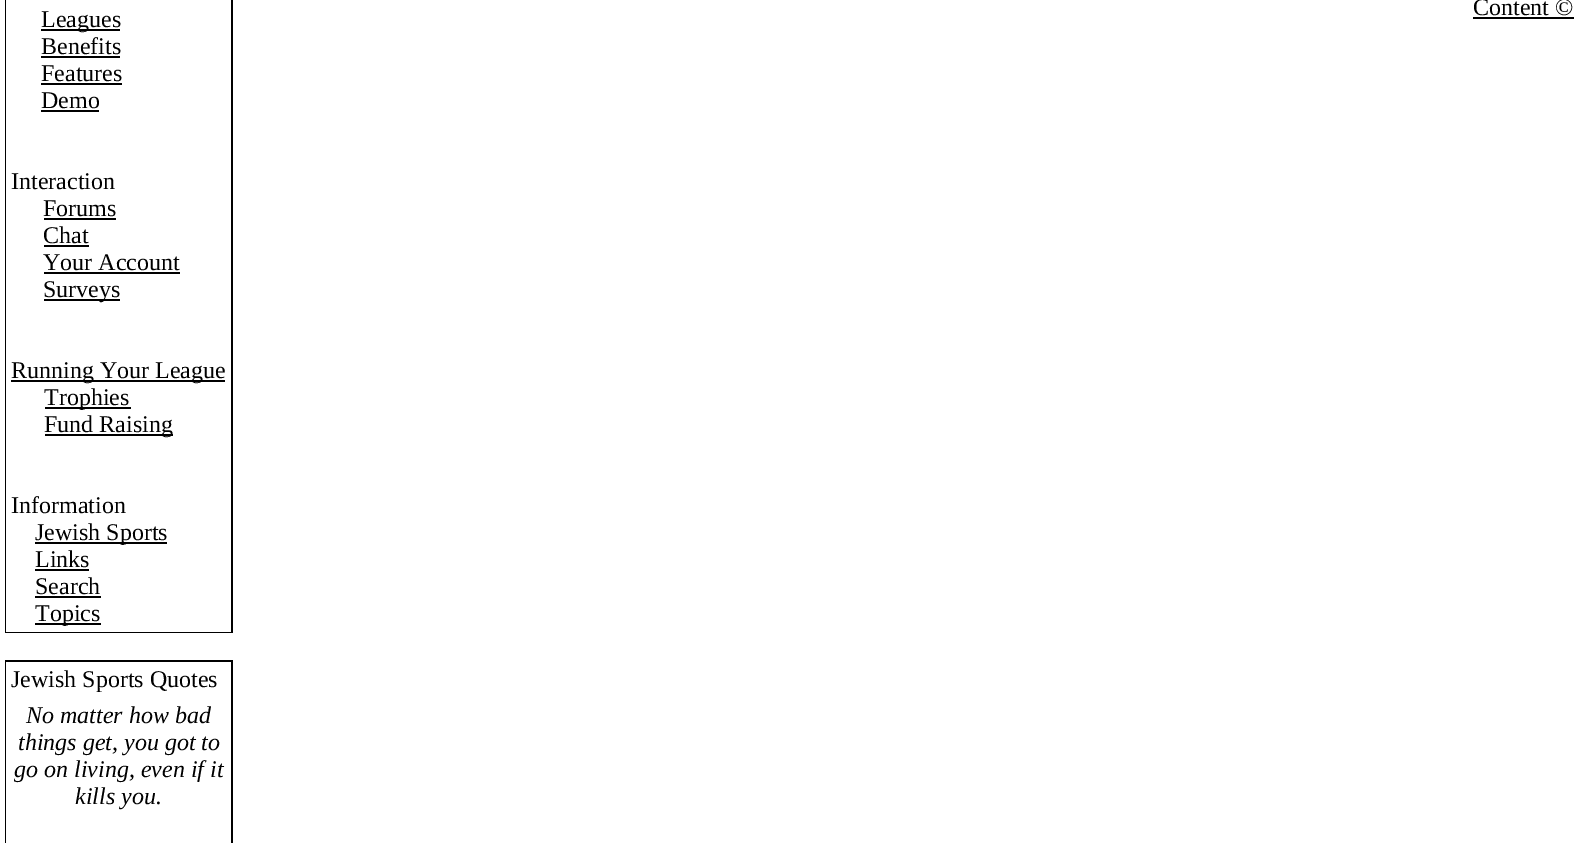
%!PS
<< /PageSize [1577 843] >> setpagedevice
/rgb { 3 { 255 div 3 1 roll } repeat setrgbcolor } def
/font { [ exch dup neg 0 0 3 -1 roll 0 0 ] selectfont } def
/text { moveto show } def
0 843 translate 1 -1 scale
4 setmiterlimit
255 255 255 rgb
0 0 1577 843 rectfill
0 0 0 rgb
1473 17 101 2 rectfill
5 0 228 633 rectfill
255 255 255 rgb
6 0 225 632 rectfill
0 0 0 rgb
41 29 79 2 rectfill
41 56 79 2 rectfill
41 83 81 2 rectfill
41 110 58 2 rectfill
44 218 72 2 rectfill
44 245 45 2 rectfill
44 272 136 2 rectfill
44 299 76 2 rectfill
11 380 214 2 rectfill
45 407 86 2 rectfill
45 434 128 2 rectfill
35 542 132 2 rectfill
35 569 54 2 rectfill
35 596 66 2 rectfill
35 623 66 2 rectfill
5 660 228 183 rectfill
255 255 255 rgb
6 662 225 181 rectfill
/LiberationSerif-Regular 24 font
0 0 0 rgb
(Content ©) 1473 15 text
(Leagues) 41 27 text
(Benefits) 41 54 text
(Features) 41 81 text
(Demo) 41 108 text
(Interaction) 11 189 text
(Forums) 43 216 text
(Chat) 43 243 text
(Your Account) 43 270 text
(Surveys) 43 297 text
(Running Your League) 11 378 text
(Trophies) 44 405 text
(Fund Raising) 44 432 text
(Information) 11 513 text
(Jewish Sports) 35 540 text
(Links) 35 567 text
(Search) 35 594 text
(Topics) 35 621 text
(Jewish Sports Quotes) 11 687 text
/LiberationSerif-Italic 24 font
(No matter how bad) 26 723 text
(things get, you got to) 18 750 text
(go on living, even if it) 14 777 text
(kills you.) 75 804 text
showpage
